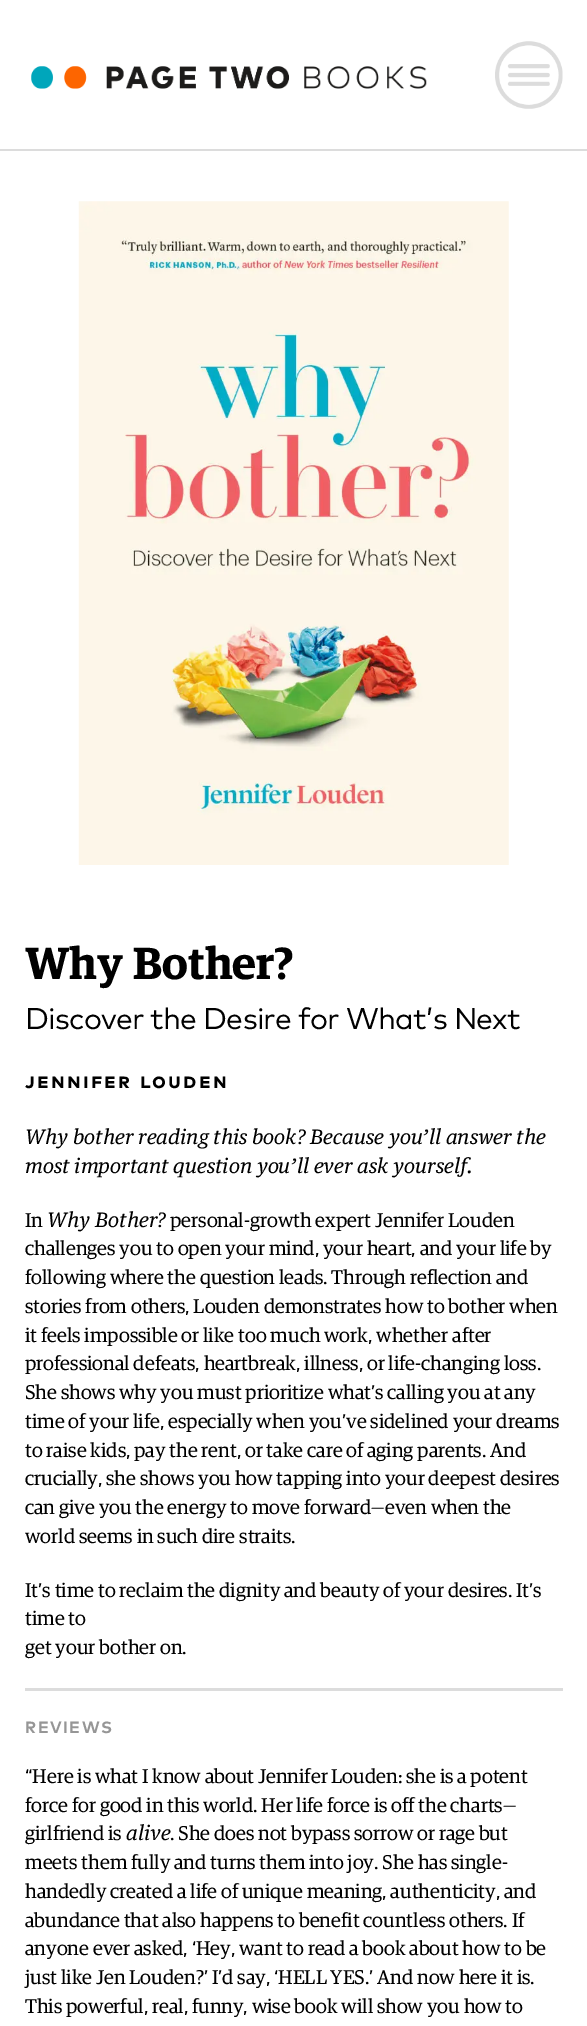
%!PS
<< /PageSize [587 2026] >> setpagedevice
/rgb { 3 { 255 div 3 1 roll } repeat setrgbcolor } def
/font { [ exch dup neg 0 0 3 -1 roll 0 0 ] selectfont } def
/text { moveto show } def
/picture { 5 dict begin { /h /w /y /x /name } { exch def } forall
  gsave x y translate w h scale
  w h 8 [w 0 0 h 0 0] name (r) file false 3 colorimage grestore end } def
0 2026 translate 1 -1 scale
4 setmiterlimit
255 255 255 rgb
0 0 587 2026 rectfill
220 220 220 rgb
0 149 587 2 rectfill
(img_01.rgb) 31 66 396 23 picture
(img_02.rgb) 495 41 68 68 picture
(img_03.rgb) 78 201 431 664 picture
25 1688 538 3 rectfill
/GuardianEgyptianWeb-SemiBold 45 font
0 0 0 rgb
25 979 moveto 2 0 32 (Why Bother?) widthshow
/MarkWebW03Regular-Regular 30 font
25 1029 moveto -0.5 0 32 -0.75 0 (Discover the Desire for What’s Next) awidthshow
/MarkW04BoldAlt-Bold 21.25 font
25 1088 moveto 2.1 0 (jennifer louden) ashow
/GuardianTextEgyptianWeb-Italic 20 font
(Why bother reading this book? Because you’ll answer the) 25 1144 text
(most important question you’ll ever ask yourself.) 25 1173 text
/GuardianEgyptianWeb-Regular 20 font
(In) 25 1227 text
/GuardianTextEgyptianWeb-Italic 20 font
(Why Bother?) 47 1227 text
/GuardianEgyptianWeb-Regular 20 font
(personal-growth expert Jennifer Louden) 170 1227 text
(challenges you to open your mind, your heart, and your life by) 25 1255 text
(following where the question leads. Through reflection and) 25 1284 text
(stories from others, Louden demonstrates how to bother when) 25 1313 text
(it feels impossible or like too much work, whether after) 25 1342 text
(professional defeats, heartbreak, illness, or life-changing loss.) 25 1370 text
(She shows why you must prioritize what’s calling you at any) 25 1399 text
(time of your life, especially when you’ve sidelined your dreams) 25 1428 text
(to raise kids, pay the rent, or take care of aging parents. And) 25 1457 text
(crucially, she shows you how tapping into your deepest desires) 25 1485 text
(can give you the energy to move forward—even when the) 25 1514 text
(world seems in such dire straits.) 25 1543 text
(It’s time to reclaim the dignity and beauty of your desires. It’s) 25 1597 text
(time to) 25 1625 text
(get your bother on.) 25 1654 text
/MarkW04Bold-Bold 16.25 font
150 150 150 rgb
25 1733 moveto 1.5 0 (REVIEWS) ashow
/GuardianEgyptianWeb-Regular 20 font
0 0 0 rgb
(“Here is what I know about Jennifer Louden: she is a potent) 25 1783 text
(force for good in this world. Her life force is off the charts—) 25 1812 text
(girlfriend is) 25 1840 text
/GuardianTextEgyptianWeb-Italic 20 font
(alive) 126 1840 text
/GuardianEgyptianWeb-Regular 20 font
(. She does not bypass sorrow or rage but) 170 1840 text
(meets them fully and turns them into joy. She has single-) 25 1869 text
(handedly created a life of unique meaning, authenticity, and) 25 1898 text
(abundance that also happens to benefit countless others. If) 25 1927 text
(anyone ever asked, ‘Hey, want to read a book about how to be) 25 1955 text
(just like Jen Louden?’ I’d say, ‘HELL YES.’ And now here it is.) 25 1984 text
(This powerful, real, funny, wise book will show you how to) 25 2013 text
showpage
